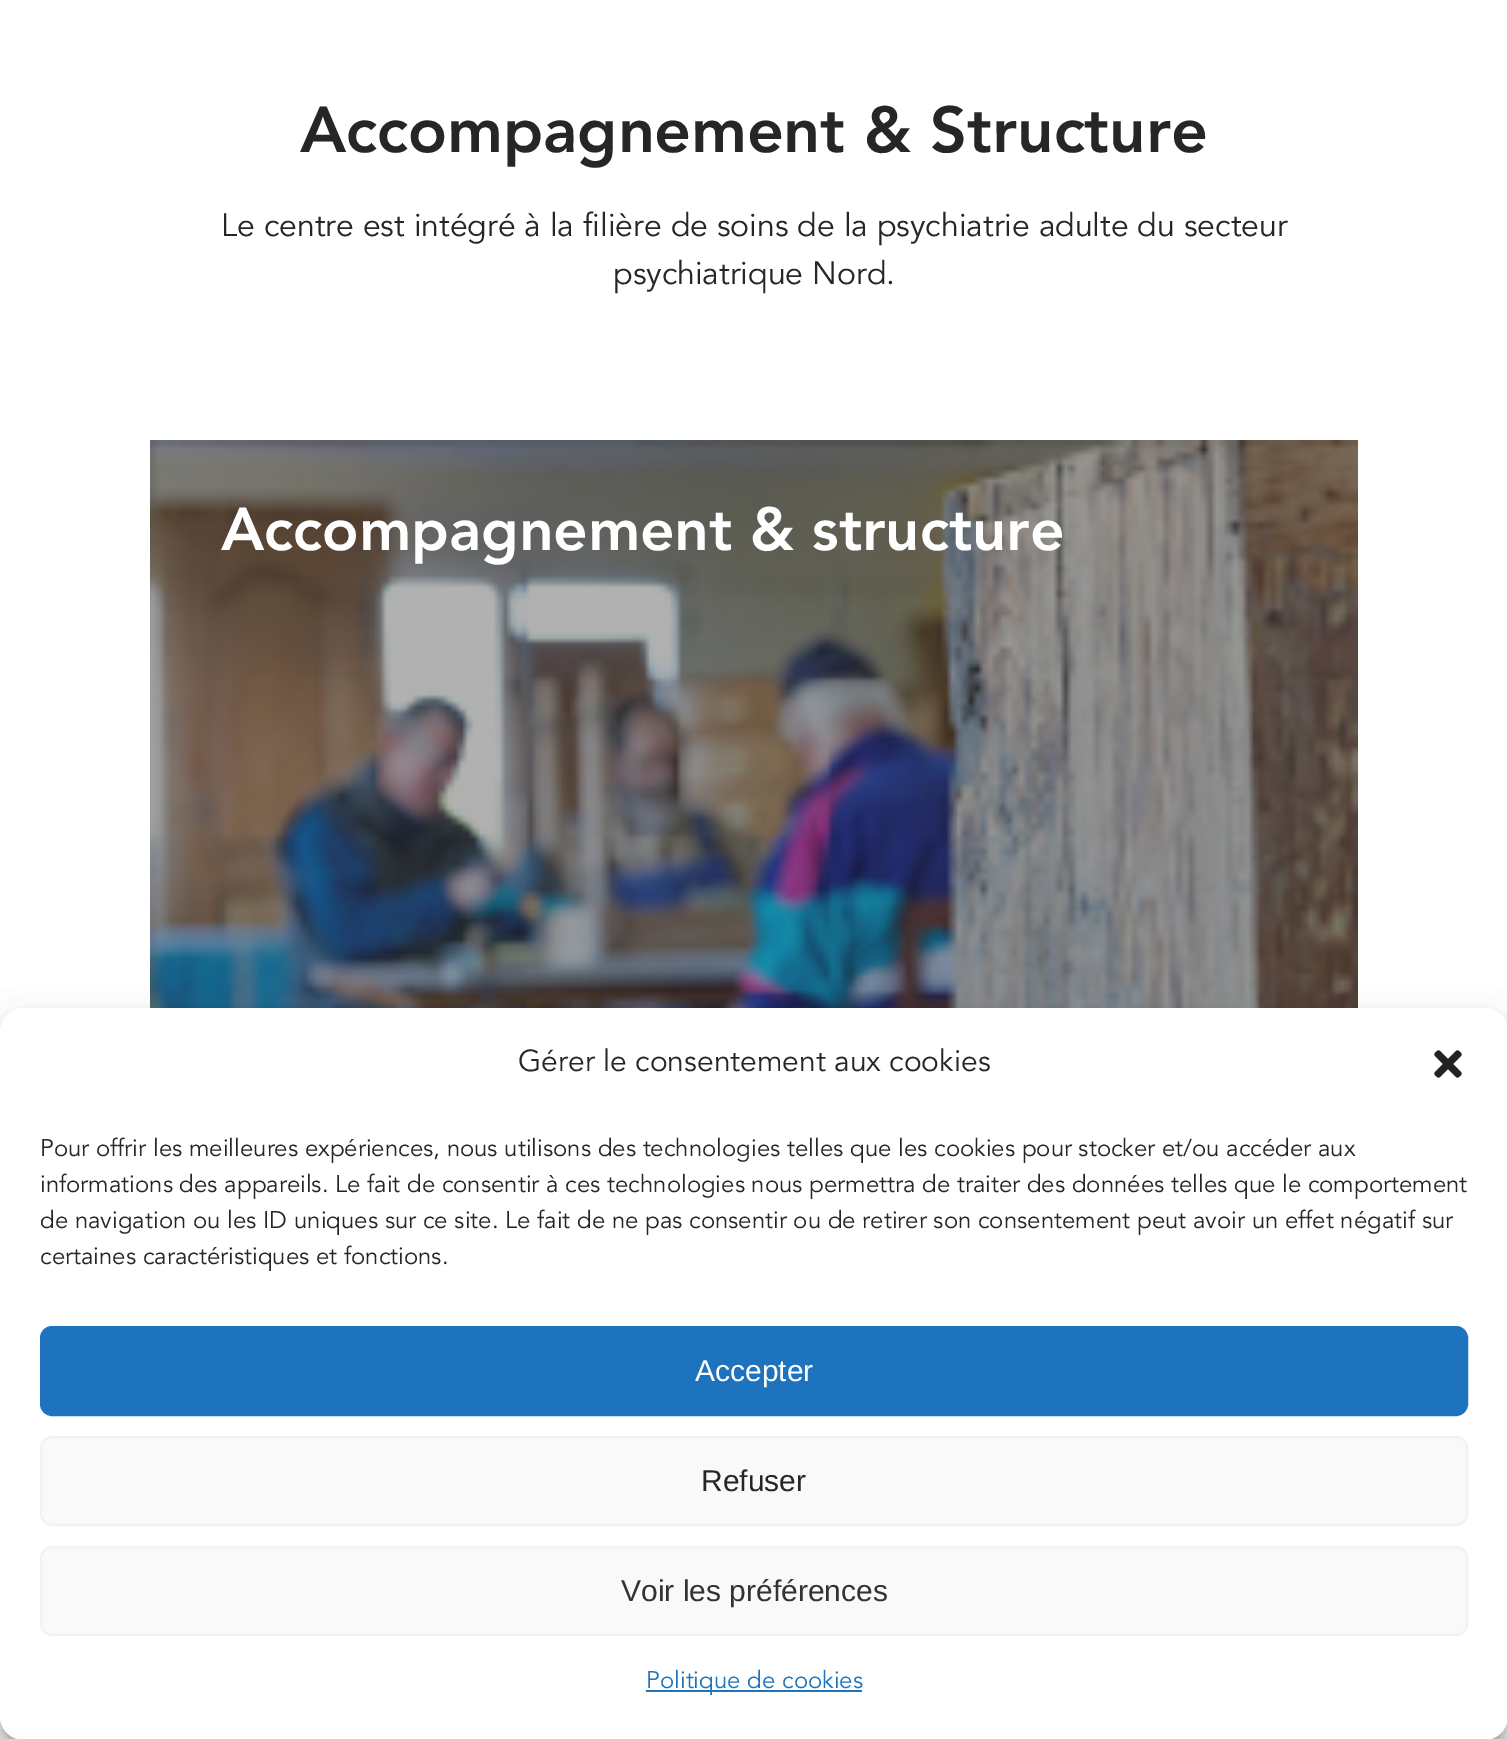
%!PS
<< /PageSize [1507 1739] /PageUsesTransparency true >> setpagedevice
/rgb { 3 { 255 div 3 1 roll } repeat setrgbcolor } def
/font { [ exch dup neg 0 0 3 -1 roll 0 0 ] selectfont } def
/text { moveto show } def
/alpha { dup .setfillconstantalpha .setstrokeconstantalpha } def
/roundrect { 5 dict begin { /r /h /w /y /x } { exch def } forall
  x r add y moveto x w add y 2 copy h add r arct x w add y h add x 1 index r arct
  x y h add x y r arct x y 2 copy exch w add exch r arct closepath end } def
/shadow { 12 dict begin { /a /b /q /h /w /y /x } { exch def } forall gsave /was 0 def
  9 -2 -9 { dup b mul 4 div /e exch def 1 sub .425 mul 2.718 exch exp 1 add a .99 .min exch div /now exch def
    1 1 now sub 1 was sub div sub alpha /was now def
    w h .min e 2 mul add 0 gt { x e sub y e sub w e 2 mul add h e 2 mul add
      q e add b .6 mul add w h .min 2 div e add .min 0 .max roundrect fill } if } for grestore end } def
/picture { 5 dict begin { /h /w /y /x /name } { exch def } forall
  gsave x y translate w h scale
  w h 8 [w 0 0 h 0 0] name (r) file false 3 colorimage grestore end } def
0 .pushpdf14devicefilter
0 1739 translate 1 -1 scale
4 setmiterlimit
255 255 255 rgb
0 0 1507 1739 rectfill
(img_01.rgb) 150 440 1208 568 picture
0 0 0 rgb
0 1020 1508 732 24 6 0.23 shadow
0 1028 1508 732 24 20 0.19 shadow
255 255 255 rgb
0 1008 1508 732 24 roundrect fill
(img_02.rgb) 1434 1050 28 28 picture
30 115 190 rgb
41 1327 1426 88 11 roundrect gsave fill grestore
2 setlinewidth
stroke
249 249 249 rgb
41 1437 1426 88 11 roundrect gsave fill grestore
242 242 242 rgb
stroke
249 249 249 rgb
41 1547 1426 88 11 roundrect gsave fill grestore
242 242 242 rgb
stroke
30 115 190 rgb
646 1690 216 2 rectfill
/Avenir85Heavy-Black 64 font
38 38 38 rgb
(Accompagnement & Structure) 300 152 text
/Avenir-Regular 32 font
(Le centre est intégré à la filière de soins de la psychiatrie adulte du secteur) 221 236 text
(psychiatrique Nord.) 613 284 text
/Avenir85Heavy-Black 60 font
255 255 255 rgb
(Accompagnement & structure) 221 550 text
/Avenir-Regular 30 font
38 38 38 rgb
(Gérer le consentement aux cookies) 518 1071 text
/Avenir-Regular 24 font
(Pour offrir les meilleures expériences, nous utilisons des technologies telles que les cookies pour stocker et/ou accéder aux) 40 1156 text
(informations des appareils. Le fait de consentir à ces technologies nous permettra de traiter des données telles que le comportement) 40 1192 text
(de navigation ou les ID uniques sur ce site. Le fait de ne pas consentir ou de retirer son consentement peut avoir un effet négatif sur) 40 1228 text
(certaines caractéristiques et fonctions.) 40 1264 text
/LiberationSans-Regular 30 font
255 255 255 rgb
(Accepter) 695 1381 text
38 38 38 rgb
(Refuser) 701 1491 text
51 51 51 rgb
(Voir les préférences) 621 1601 text
/Avenir-Regular 24 font
30 115 190 rgb
(Politique de cookies) 646 1688 text
.poppdf14devicefilter showpage
